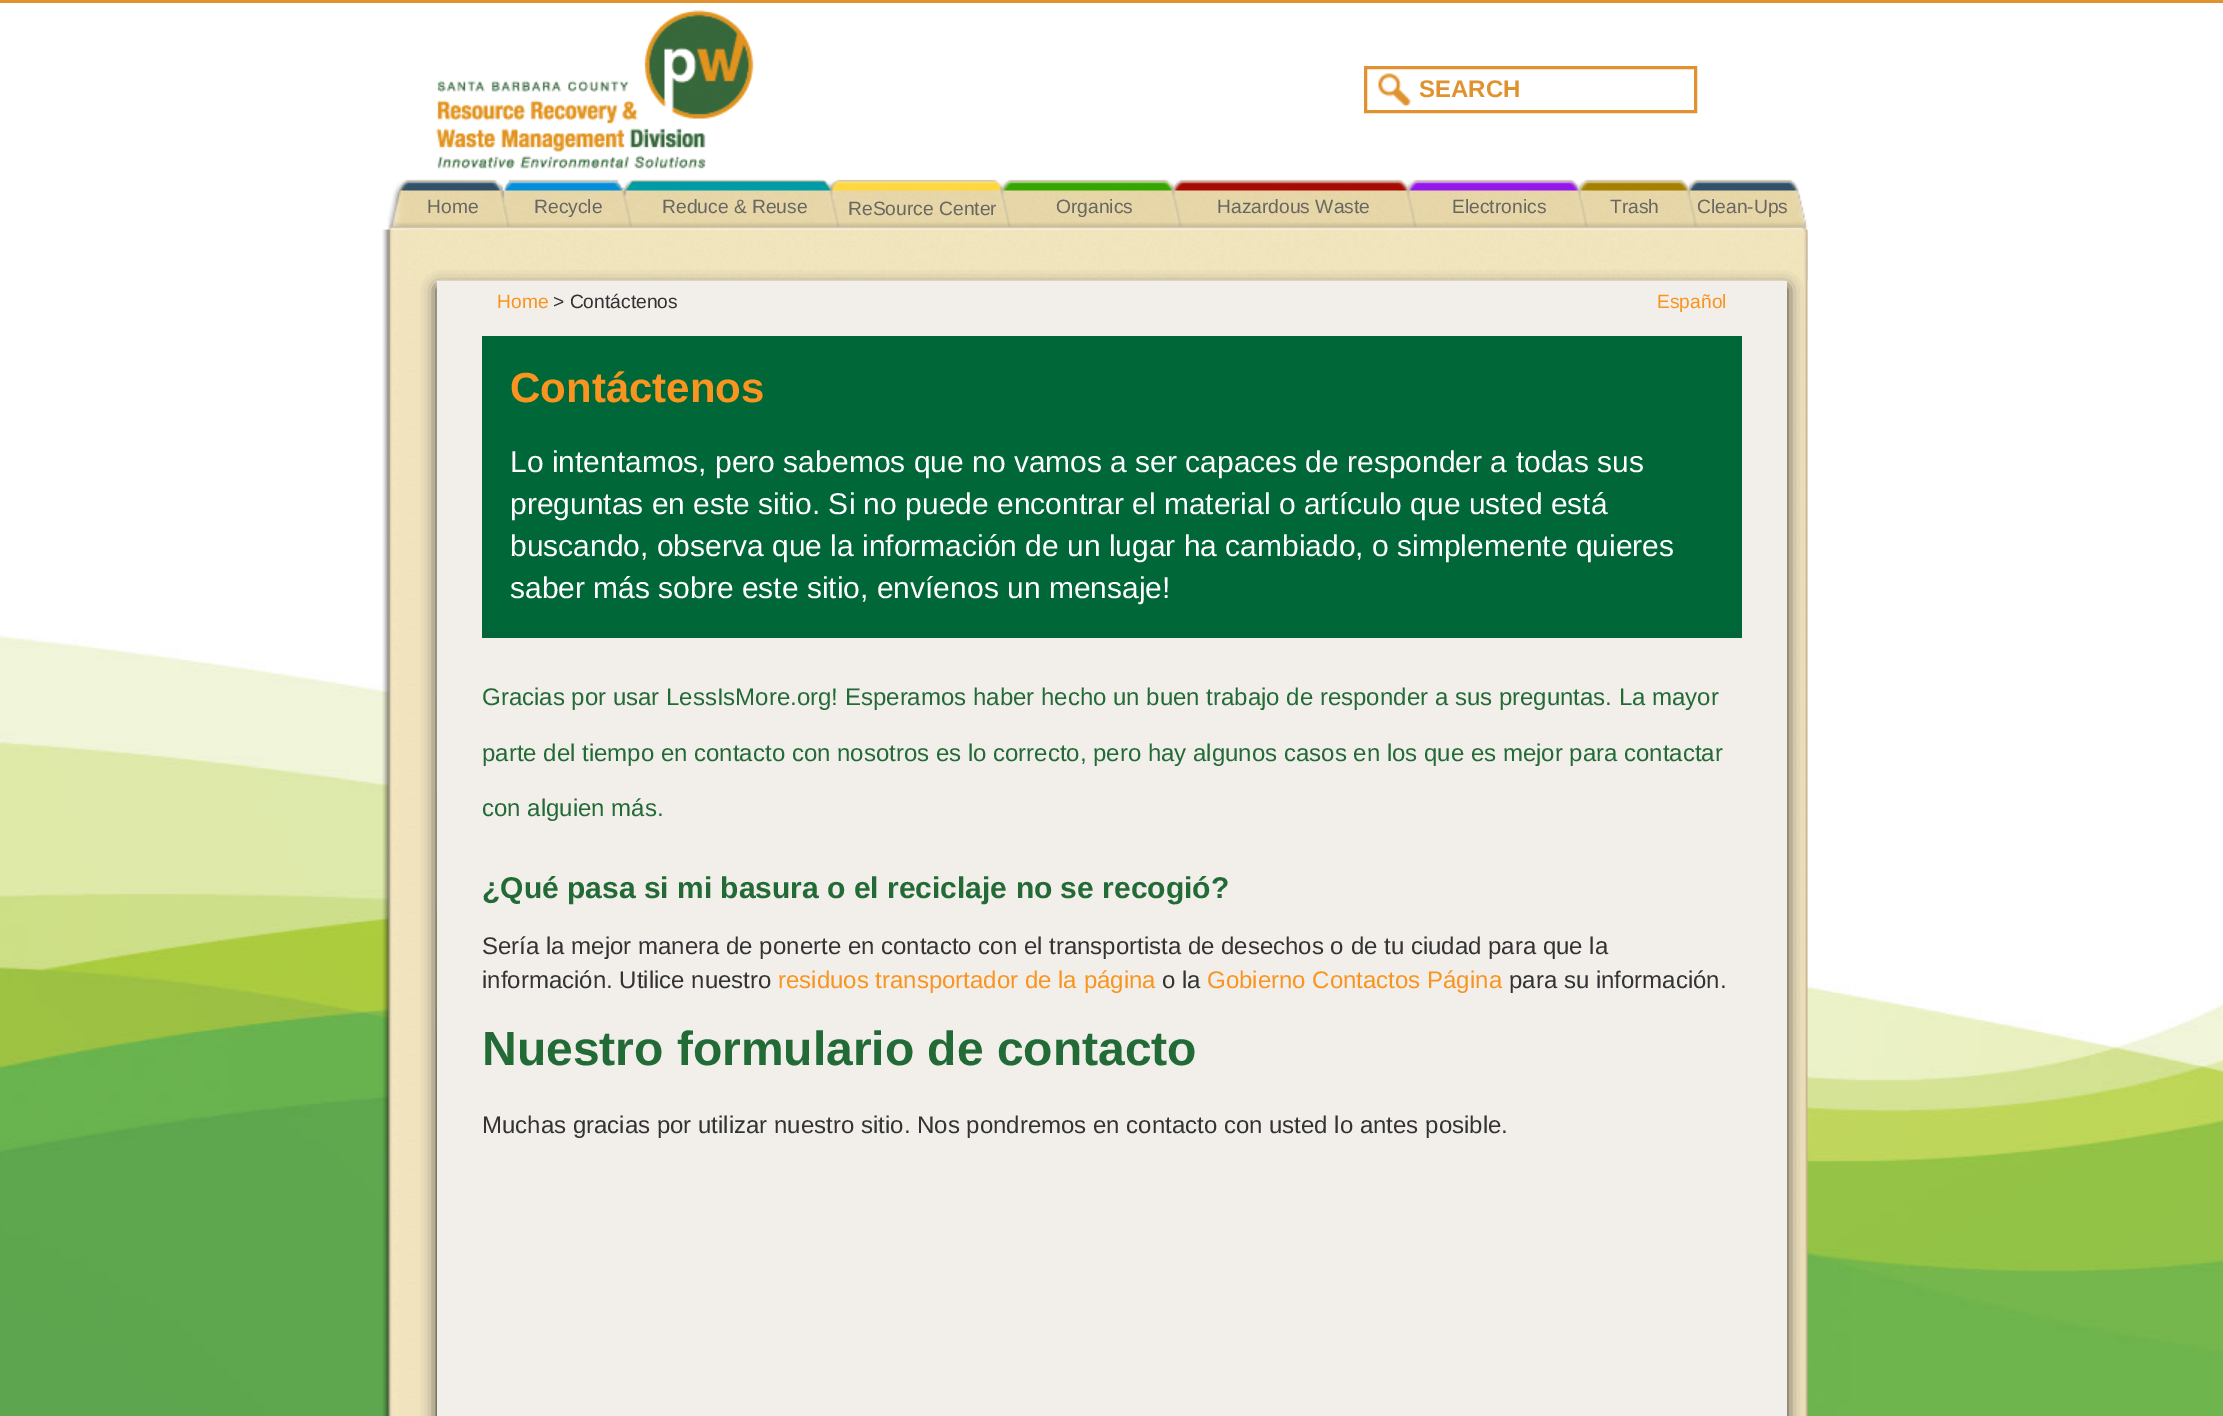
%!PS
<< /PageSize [2223 1416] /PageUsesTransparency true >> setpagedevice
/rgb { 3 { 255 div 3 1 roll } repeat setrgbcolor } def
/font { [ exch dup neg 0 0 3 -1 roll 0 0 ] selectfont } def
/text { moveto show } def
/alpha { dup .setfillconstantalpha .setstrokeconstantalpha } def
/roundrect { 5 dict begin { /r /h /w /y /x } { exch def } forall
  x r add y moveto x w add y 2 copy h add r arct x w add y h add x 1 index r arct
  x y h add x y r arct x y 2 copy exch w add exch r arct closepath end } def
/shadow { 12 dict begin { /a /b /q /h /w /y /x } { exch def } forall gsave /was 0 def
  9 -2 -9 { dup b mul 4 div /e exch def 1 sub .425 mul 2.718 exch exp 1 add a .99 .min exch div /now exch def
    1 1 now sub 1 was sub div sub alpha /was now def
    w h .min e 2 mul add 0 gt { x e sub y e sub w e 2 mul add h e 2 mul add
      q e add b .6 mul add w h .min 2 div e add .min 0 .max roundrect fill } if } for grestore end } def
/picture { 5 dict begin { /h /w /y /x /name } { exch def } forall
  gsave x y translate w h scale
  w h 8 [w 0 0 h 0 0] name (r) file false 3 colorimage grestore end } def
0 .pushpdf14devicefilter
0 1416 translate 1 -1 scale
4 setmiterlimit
255 255 255 rgb
0 0 2223 1416 rectfill
(img_01.rgb) 0 3 2223 1413 picture
224 146 47 rgb
0 0 2223 3 rectfill
(img_02.rgb) 436 10 318 159 picture
(img_03.rgb) 1378 73 33 34 picture
223 146 47 rgb
3 setlinewidth
1365.5 67.5 330 44 rectstroke
(img_04.rgb) 387 179 1421 51 picture
(img_05.rgb) 382 229 1426 1187 picture
(img_06.rgb) 406 229 1402 52 picture
51 51 51 rgb
437 287 1350 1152 0 7.5 1 shadow
242 238 234 rgb
437 281 1350 1135 rectfill
0 103 56 rgb
482 336 1260 302 rectfill
/LiberationSans-Bold 24 font
223 146 47 rgb
(SEARCH) 1419 97 text
/LiberationSans-Regular 19.25 font
104 103 97 rgb
(Home) 427 213 text
(Recycle) 534 213 text
(Reduce & Reuse) 662 213 text
(ReSource Center) 848 215 text
(Organics) 1056 213 text
(Hazardous Waste) 1217 213 text
(Electronics) 1452 213 text
(Trash) 1610 213 text
(Clean-Ups) 1697 213 text
248 148 31 rgb
(Home) 497 308 text
51 51 51 rgb
(> Contáctenos) 553 308 text
248 148 31 rgb
(Español) 1657 308 text
/LiberationSans-Bold 42 font
(Contáctenos) 510 402 text
/LiberationSans-Regular 30 font
255 255 255 rgb
(Lo intentamos, pero sabemos que no vamos a ser capaces de responder a todas sus) 510 472 text
(preguntas en este sitio. Si no puede encontrar el material o artículo que usted está) 510 514 text
(buscando, observa que la información de un lugar ha cambiado, o simplemente quieres) 510 556 text
(saber más sobre este sitio, envíenos un mensaje!) 510 598 text
/LiberationSans-Regular 24 font
34 106 54 rgb
(Gracias por usar LessIsMore.org! Esperamos haber hecho un buen trabajo de responder a sus preguntas. La mayor) 482 705 text
(parte del tiempo en contacto con nosotros es lo correcto, pero hay algunos casos en los que es mejor para contactar) 482 761 text
(con alguien más.) 482 816 text
/LiberationSans-Bold 30 font
(¿Qué pasa si mi basura o el reciclaje no se recogió?) 482 898 text
/LiberationSans-Regular 24 font
51 51 51 rgb
(Sería la mejor manera de ponerte en contacto con el transportista de desechos o de tu ciudad para que la) 482 954 text
(información. Utilice nuestro) 482 988 text
248 148 31 rgb
(residuos transportador de la página) 778 988 text
51 51 51 rgb
(o la) 1162 988 text
248 148 31 rgb
(Gobierno Contactos Página) 1207 988 text
51 51 51 rgb
(para su información.) 1509 988 text
/LiberationSans-Bold 48 font
34 106 54 rgb
(Nuestro formulario de contacto) 482 1065 text
/LiberationSans-Regular 24 font
51 51 51 rgb
(Muchas gracias por utilizar nuestro sitio. Nos pondremos en contacto con usted lo antes posible.) 482 1133 text
.poppdf14devicefilter showpage
